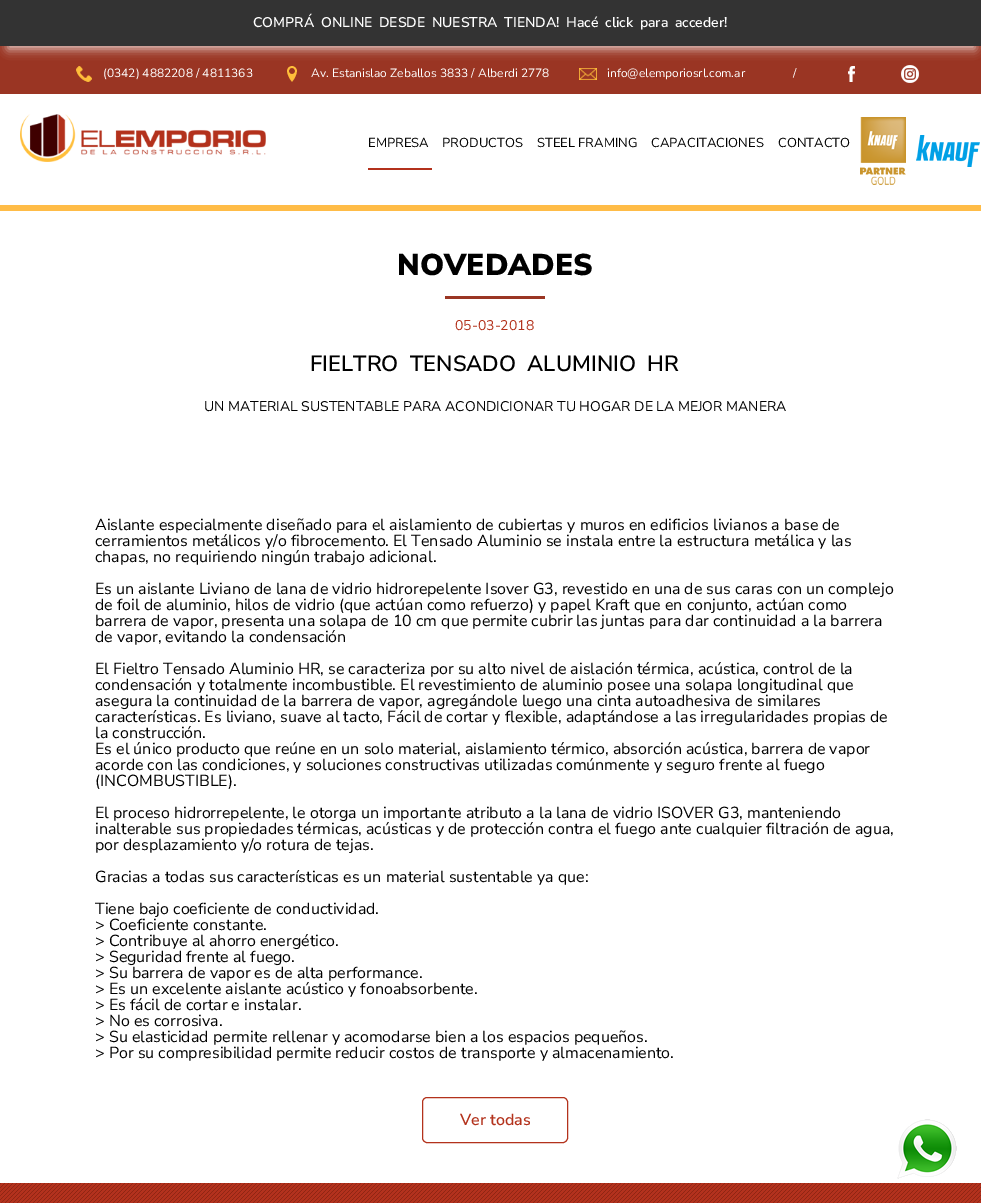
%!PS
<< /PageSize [981 1203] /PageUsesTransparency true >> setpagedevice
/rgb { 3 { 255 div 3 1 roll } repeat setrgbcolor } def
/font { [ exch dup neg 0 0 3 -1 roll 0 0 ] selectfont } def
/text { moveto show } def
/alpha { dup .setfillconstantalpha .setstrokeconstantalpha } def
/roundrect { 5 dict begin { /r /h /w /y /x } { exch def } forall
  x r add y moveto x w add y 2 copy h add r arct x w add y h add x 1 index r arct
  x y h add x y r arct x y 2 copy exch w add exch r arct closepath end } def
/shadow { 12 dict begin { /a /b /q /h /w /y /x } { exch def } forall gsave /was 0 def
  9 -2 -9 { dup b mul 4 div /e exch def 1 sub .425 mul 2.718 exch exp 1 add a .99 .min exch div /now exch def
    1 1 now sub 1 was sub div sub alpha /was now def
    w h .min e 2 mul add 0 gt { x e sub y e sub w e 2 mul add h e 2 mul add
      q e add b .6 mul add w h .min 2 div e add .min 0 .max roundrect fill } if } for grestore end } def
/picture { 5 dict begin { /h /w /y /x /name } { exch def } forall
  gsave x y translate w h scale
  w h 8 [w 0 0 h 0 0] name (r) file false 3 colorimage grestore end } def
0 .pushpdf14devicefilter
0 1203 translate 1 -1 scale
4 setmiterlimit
255 255 255 rgb
0 0 981 1203 rectfill
154 53 35 rgb
0 46 981 48 rectfill
255 255 255 rgb
8 17 967 32 0 5 0.75 shadow
51 51 51 rgb
0 0 981 46 rectfill
(img_01.rgb) 76 66 16 16 picture
(img_02.rgb) 287 66 10 16 picture
(img_03.rgb) 579 68 18 12 picture
(img_04.rgb) 848 66 7 16 picture
(img_05.rgb) 901 65 18 18 picture
255 188 71 rgb
0 205 981 6 rectfill
(img_06.rgb) 20 114 246 48 picture
179 49 28 rgb
368 168 64 2 rectfill
(img_07.rgb) 860 117 46 68 picture
(img_08.rgb) 916 135 64 32 picture
154 53 35 rgb
445 296 100 3 rectfill
179 50 28 rgb
422.5 1097.5 145 45 4.5 roundrect stroke
(img_09.rgb) 0 1183 981 20 picture
(img_10.rgb) 897 1119 60 60 picture
/NunitoSans-SemiBold 14 font
255 255 255 rgb
253 27 moveto 3 0 32 (COMPRÁ ONLINE DESDE NUESTRA TIENDA! Hacé click para acceder!) widthshow
/NunitoSans-Regular 12 font
(\(0342\) 4882208 / 4811363) 103 77 text
(Av. Estanislao Zeballos 3833 / Alberdi 2778) 311 77 text
(info@elemporiosrl.com.ar) 607 77 text
(/) 793 77 text
/NunitoSans-Regular 13 font
0 0 0 rgb
(EMPRESA) 368 147 text
(PRODUCTOS) 442 147 text
(STEEL FRAMING) 537 147 text
(CAPACITACIONES) 651 147 text
(CONTACTO) 778 147 text
/NunitoSans-Black 30 font
(NOVEDADES) 397 275 text
/NunitoSans-Regular 14 font
179 50 28 rgb
(05-03-2018) 455 330 text
/NunitoSans-SemiBold 22 font
0 0 0 rgb
310 371 moveto 5.5 0 32 (FIELTRO TENSADO ALUMINIO HR) widthshow
/NunitoSans-Regular 14 font
(UN MATERIAL SUSTENTABLE PARA ACONDICIONAR TU HOGAR DE LA MEJOR MANERA) 204 411 text
/NunitoSans-Regular 16 font
(Aislante especialmente diseñado para el aislamiento de cubiertas y muros en edificios livianos a base de) 95 530 text
(cerramientos metálicos y/o fibrocemento. El Tensado Aluminio se instala entre la estructura metálica y las) 95 546 text
(chapas, no requiriendo ningún trabajo adicional.) 95 562 text
(Es un aislante Liviano de lana de vidrio hidrorepelente Isover G3, revestido en una de sus caras con un complejo) 95 594 text
(de foil de aluminio, hilos de vidrio \(que actúan como refuerzo\) y papel Kraft que en conjunto, actúan como) 95 610 text
(barrera de vapor, presenta una solapa de 10 cm que permite cubrir las juntas para dar continuidad a la barrera) 95 626 text
(de vapor, evitando la condensación) 95 642 text
(El Fieltro Tensado Aluminio HR, se caracteriza por su alto nivel de aislación térmica, acústica, control de la) 95 674 text
(condensación y totalmente incombustible. El revestimiento de aluminio posee una solapa longitudinal que) 95 690 text
(asegura la continuidad de la barrera de vapor, agregándole luego una cinta autoadhesiva de similares) 95 706 text
(características. Es liviano, suave al tacto, Fácil de cortar y flexible, adaptándose a las irregularidades propias de) 95 722 text
(la construcción.) 95 738 text
(Es el único producto que reúne en un solo material, aislamiento térmico, absorción acústica, barrera de vapor) 95 754 text
(acorde con las condiciones, y soluciones constructivas utilizadas comúnmente y seguro frente al fuego) 95 770 text
(\(INCOMBUSTIBLE\).) 95 786 text
(El proceso hidrorrepelente, le otorga un importante atributo a la lana de vidrio ISOVER G3, manteniendo) 95 818 text
(inalterable sus propiedades térmicas, acústicas y de protección contra el fuego ante cualquier filtración de agua,) 95 834 text
(por desplazamiento y/o rotura de tejas.) 95 850 text
(Gracias a todas sus características es un material sustentable ya que:) 95 882 text
(Tiene bajo coeficiente de conductividad.) 95 914 text
(> Coeficiente constante.) 95 930 text
(> Contribuye al ahorro energético.) 95 946 text
(> Seguridad frente al fuego.) 95 962 text
(> Su barrera de vapor es de alta performance.) 95 978 text
(> Es un excelente aislante acústico y fonoabsorbente.) 95 994 text
(> Es fácil de cortar e instalar.) 95 1010 text
(> No es corrosiva.) 95 1026 text
(> Su elasticidad permite rellenar y acomodarse bien a los espacios pequeños.) 95 1042 text
(> Por su compresibilidad permite reducir costos de transporte y almacenamiento.) 95 1058 text
/NunitoSans-SemiBold 16 font
179 50 28 rgb
(Ver todas) 460 1125 text
.poppdf14devicefilter showpage
